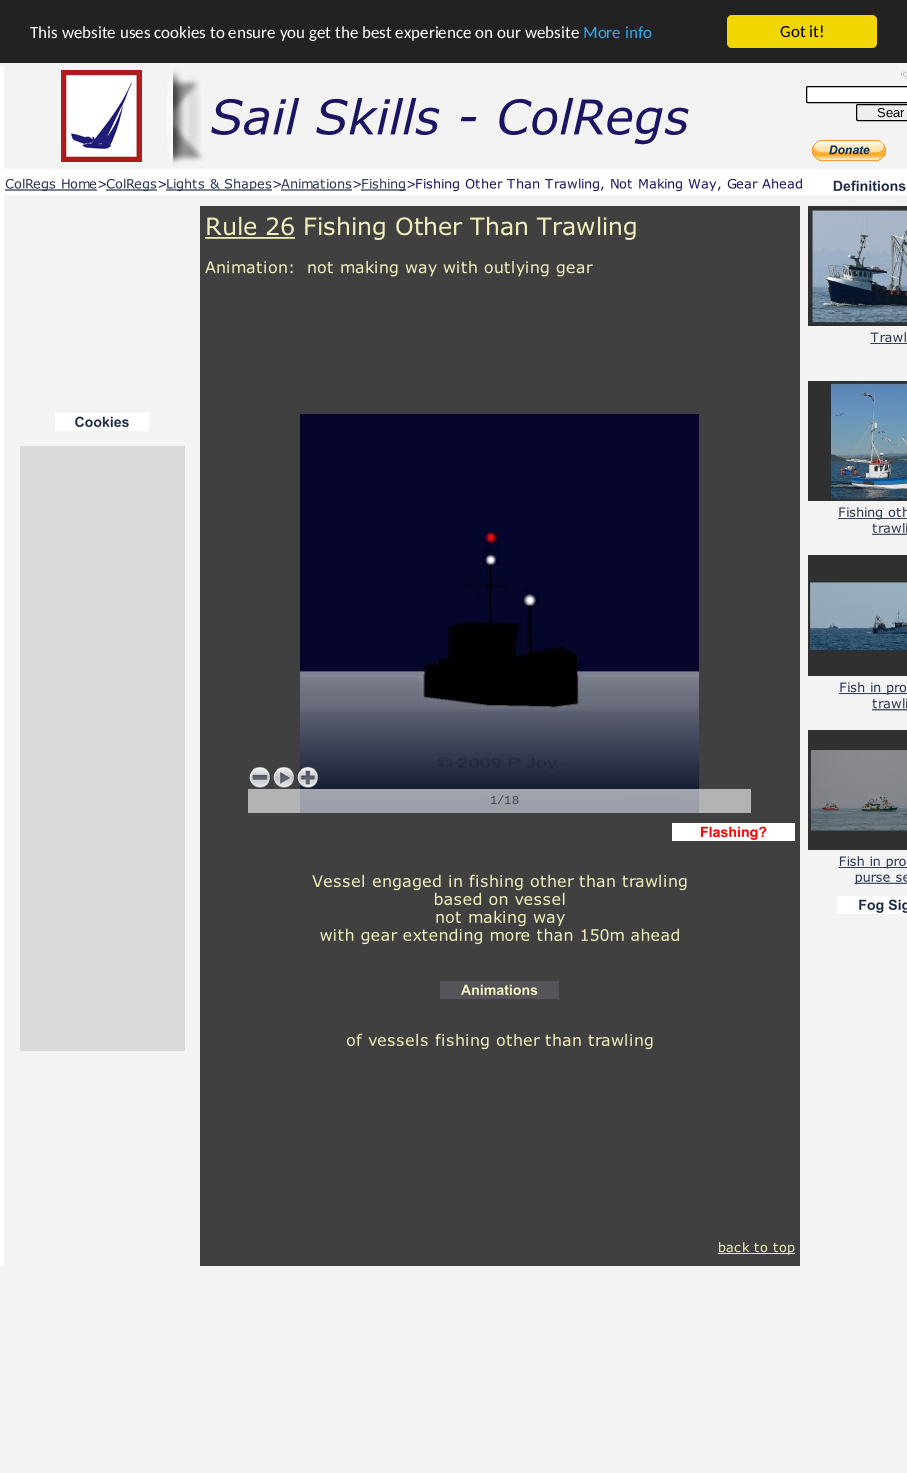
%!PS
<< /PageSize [907 1473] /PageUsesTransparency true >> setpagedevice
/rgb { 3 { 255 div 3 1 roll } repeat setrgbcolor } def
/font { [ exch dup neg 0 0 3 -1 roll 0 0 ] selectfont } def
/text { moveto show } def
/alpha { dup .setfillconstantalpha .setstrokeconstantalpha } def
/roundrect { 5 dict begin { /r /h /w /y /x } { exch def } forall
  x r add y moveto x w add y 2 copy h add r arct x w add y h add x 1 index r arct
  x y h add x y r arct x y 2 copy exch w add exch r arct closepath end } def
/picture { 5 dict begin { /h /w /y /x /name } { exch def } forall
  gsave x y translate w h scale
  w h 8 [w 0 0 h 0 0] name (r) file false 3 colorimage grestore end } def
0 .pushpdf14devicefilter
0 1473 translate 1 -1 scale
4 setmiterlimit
243 243 243 rgb
0 0 907 1473 rectfill
34 34 34 rgb
0 0 907 63 rectfill
241 214 0 rgb
727 15 150 33 5 roundrect fill
255 255 255 rgb
0 66 4 1200 rectfill
(img_01.rgb) 61 70 81 92 picture
(img_04.rgb) 173 79 31 83 picture
(img_02.rgb) 167 69 34 97 picture
(img_03.rgb) 901 70 6 9 picture
(img_05.rgb) 211 97 478 48 picture
806.5 86.5 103 16 1.5 roundrect gsave fill grestore
0 0 0 rgb
stroke
239 239 239 rgb
856.5 104.5 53 16 1.5 roundrect gsave fill grestore
0 0 0 rgb
stroke
(img_06.rgb) 812 140 74 21 picture
255 255 255 rgb
4 169 903 26 rectfill
(img_07.rgb) 5 178 797 14 picture
(img_08.rgb) 833 180 73 12 picture
64 64 64 rgb
200 206 600 1060 rectfill
(img_09.rgb) 808 206 99 120 picture
(img_10.rgb) 205 216 431 61 picture
(img_11.rgb) 870 332 37 12 picture
(img_12.rgb) 55 413 94 18 picture
(img_13.rgb) 808 381 99 120 picture
218 218 218 rgb
20 446 165 605 rectfill
(img_14.rgb) 838 507 69 28 picture
(img_15.rgb) 808 555 99 121 picture
(img_16.rgb) 839 682 68 29 picture
(img_17.rgb) 300 414 399 399 picture
(img_18.rgb) 249 766 22 22 picture
(img_19.rgb) 273 766 22 22 picture
(img_20.rgb) 297 766 22 22 picture
0.6 alpha
255 255 255 rgb
248 789 503 24 rectfill
1 alpha
(img_21.rgb) 808 730 99 120 picture
(img_22.rgb) 672 823 123 18 picture
(img_23.rgb) 838 856 69 29 picture
(img_24.rgb) 312 874 375 71 picture
(img_25.rgb) 837 896 70 18 picture
(img_26.rgb) 440 981 119 18 picture
(img_27.rgb) 346 1033 307 17 picture
(img_28.rgb) 717 1242 78 13 picture
/Carlito-Regular 17 font
(This website uses cookies to ensure you get the best experience on our website) 30 38 text
49 168 240 rgb
(More info) 583 38 text
0 0 0 rgb
(Got it!) 780 37 text
/LiberationSans-Regular 13 font
(Sear) 877 117 text
/LiberationMono-Regular 12 font
63 64 68 rgb
(1/18) 490 804 text
.poppdf14devicefilter showpage
